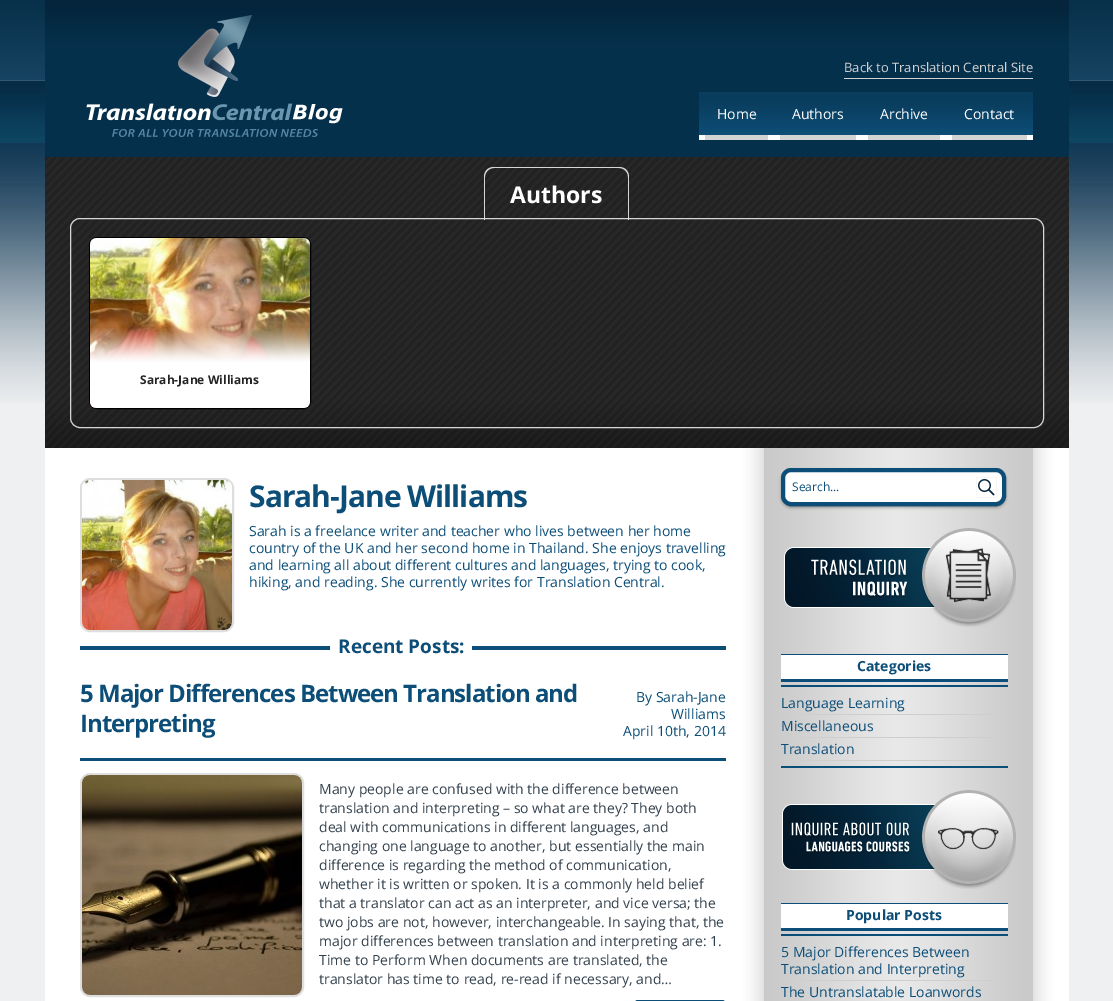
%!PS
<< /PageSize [1113 1001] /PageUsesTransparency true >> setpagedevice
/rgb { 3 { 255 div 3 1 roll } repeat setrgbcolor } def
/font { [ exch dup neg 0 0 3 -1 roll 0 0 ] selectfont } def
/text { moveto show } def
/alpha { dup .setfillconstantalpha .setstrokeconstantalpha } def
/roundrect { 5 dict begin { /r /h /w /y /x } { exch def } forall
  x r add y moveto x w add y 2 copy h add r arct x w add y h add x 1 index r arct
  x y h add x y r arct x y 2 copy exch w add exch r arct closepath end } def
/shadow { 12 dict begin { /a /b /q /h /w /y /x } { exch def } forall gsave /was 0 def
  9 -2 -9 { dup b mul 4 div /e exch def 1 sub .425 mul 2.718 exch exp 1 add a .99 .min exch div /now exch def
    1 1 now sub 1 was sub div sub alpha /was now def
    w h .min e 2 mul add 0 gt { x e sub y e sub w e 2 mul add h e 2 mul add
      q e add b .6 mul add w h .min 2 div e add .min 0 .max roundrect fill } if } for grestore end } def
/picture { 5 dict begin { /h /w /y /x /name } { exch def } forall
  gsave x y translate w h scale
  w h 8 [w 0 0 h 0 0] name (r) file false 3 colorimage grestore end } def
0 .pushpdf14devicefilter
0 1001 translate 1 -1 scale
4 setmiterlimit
239 240 241 rgb
0 0 1113 1001 rectfill
(img_01.rgb) 0 0 1113 403 picture
(img_02.rgb) 45 0 1024 157 picture
(img_03.rgb) 86 15 257 122 picture
211 211 211 rgb
844 78 189 1 rectfill
(img_04.rgb) 699 92 334 48 picture
705 135 63 5 rectfill
780 135 76 5 rectfill
868 135 72 5 rectfill
952 135 75 5 rectfill
(img_05.rgb) 45 448 1024 553 picture
(img_06.rgb) 45 157 1024 291 picture
214 214 214 rgb
70.5 218.5 973 209 9.5 roundrect stroke
494 167 moveto 125 0 rlineto 6 0 10 4 10 10 rcurveto 0 43 rlineto -145 0 rlineto 0 -43 rlineto 0 -6 4 -10 10 -10 rcurveto closepath 494 168 moveto 125 0 rlineto 5 0 9 4 9 9 rcurveto 0 43 rlineto -143 0 rlineto 0 -43 rlineto 0 -5 4 -9 9 -9 rcurveto closepath eofill
0 0 0 rgb
89.5 237.5 221 171 7.5 roundrect stroke
(img_07.rgb) 90 238 220 170 picture
(img_08.rgb) 90 328 220 80 picture
222 222 222 rgb
2 setlinewidth
81 479 152 152 9 roundrect stroke
(img_09.rgb) 82 480 150 150 picture
12 78 120 rgb
80 646 646 4 rectfill
255 255 255 rgb
330 646 142 4 rectfill
12 78 120 rgb
80 758 646 3 rectfill
222 222 222 rgb
81 774 222 222 9 roundrect stroke
(img_10.rgb) 82 775 220 220 picture
12 78 120 rgb
1 setlinewidth
634.5 1000.5 91 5 3.5 roundrect stroke
0 0 0 rgb
783 472 221 34 8 2 0.8 shadow
255 255 255 rgb
783 470 221 34 8 roundrect gsave fill grestore
12 78 120 rgb
4 setlinewidth
stroke
246 246 246 rgb
976 477 21 21 rectfill
(img_11.rgb) 977 478 19 19 picture
(img_12.rgb) 784 528 232 99 picture
255 255 255 rgb
781 655 227 24 rectfill
12 78 122 rgb
781 654 227 1 rectfill
781 679 227 3 rectfill
781 685 227 2 rectfill
781 766 227 2 rectfill
206 206 206 rgb
801 714 195 1 rectfill
801 737 195 1 rectfill
801 760 195 1 rectfill
(img_13.rgb) 782 790 234 99 picture
255 255 255 rgb
781 904 227 24 rectfill
12 78 122 rgb
781 903 227 1 rectfill
781 928 227 3 rectfill
781 934 227 2 rectfill
206 206 206 rgb
801 980 195 1 rectfill
/OpenSans-Regular 13 font
211 211 211 rgb
(Back to Translation Central Site) 844 72 text
/OpenSans-Regular 14 font
255 255 255 rgb
(Home) 717 119 text
(Authors) 792 119 text
(Archive) 880 119 text
(Contact) 964 119 text
/OpenSans-Bold 23 font
(Authors) 510 203 text
/OpenSans-Bold 12 font
35 35 35 rgb
(Sarah-Jane Williams) 140 384 text
/OpenSans-Bold 30 font
12 78 120 rgb
249 507 moveto -1 0 (Sarah-Jane Williams) ashow
/OpenSans-Regular 14 font
(Sarah is a freelance writer and teacher who lives between her home) 249 536 text
(country of the UK and her second home in Thailand. She enjoys travelling) 249 553 text
(and learning all about different cultures and languages, trying to cook,) 249 570 text
(hiking, and reading. She currently writes for Translation Central.) 249 587 text
/OpenSans-Bold 19 font
(Recent Posts:) 338 653 text
/OpenSans-Bold 24 font
80 702 moveto -1 0 (5 Major Differences Between Translation and) ashow
80 732 moveto -1 0 (Interpreting) ashow
/OpenSans-Regular 14 font
(By Sarah-Jane) 636 702 text
(Williams) 671 719 text
(April 10th, 2014) 623 736 text
51 65 77 rgb
(Many people are confused with the difference between) 319 794 text
(translation and interpreting – so what are they? They both) 319 813 text
(deal with communications in different languages, and) 319 832 text
(changing one language to another, but essentially the main) 319 851 text
(difference is regarding the method of communication,) 319 870 text
(whether it is written or spoken. It is a commonly held belief) 319 889 text
(that a translator can act as an interpreter, and vice versa; the) 319 908 text
(two jobs are not, however, interchangeable. In saying that, the) 319 927 text
(major differences between translation and interpreting are: 1.) 319 946 text
(Time to Perform When documents are translated, the) 319 965 text
(translator has time to read, re-read if necessary, and…) 319 984 text
/OpenSans-Regular 12 font
12 78 120 rgb
(Search...) 792 491 text
/OpenSans-Bold 14 font
(Categories) 857 671 text
/OpenSans-Regular 14 font
(Language Learning) 781 708 text
(Miscellaneous) 781 731 text
(Translation) 781 754 text
/OpenSans-Bold 14 font
(Popular Posts) 846 920 text
/OpenSans-Regular 14 font
(5 Major Differences Between) 781 957 text
(Translation and Interpreting) 781 974 text
(The Untranslatable Loanwords) 781 997 text
.poppdf14devicefilter showpage
